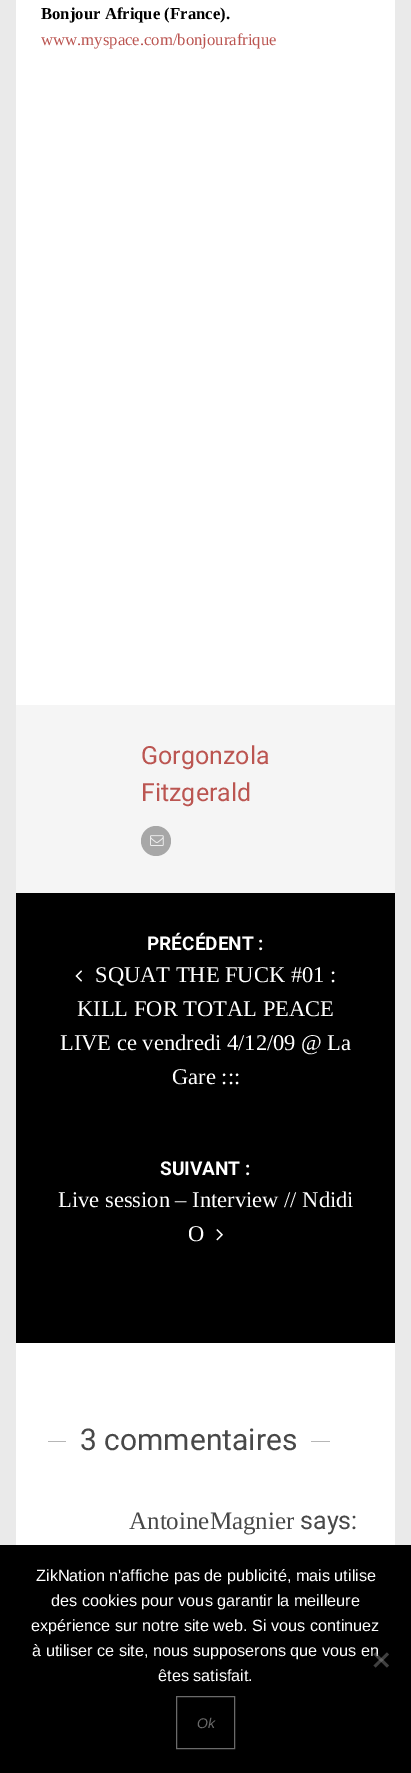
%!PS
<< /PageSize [411 1773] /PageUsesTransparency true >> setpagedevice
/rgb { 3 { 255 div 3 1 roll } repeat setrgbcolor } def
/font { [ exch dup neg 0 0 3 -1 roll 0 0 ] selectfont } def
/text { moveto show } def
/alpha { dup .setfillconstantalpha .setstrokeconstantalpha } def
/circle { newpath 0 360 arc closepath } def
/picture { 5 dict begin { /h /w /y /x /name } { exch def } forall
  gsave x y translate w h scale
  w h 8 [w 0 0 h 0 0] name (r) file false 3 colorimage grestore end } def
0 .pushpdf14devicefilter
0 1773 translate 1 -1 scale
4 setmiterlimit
234 234 234 rgb
0 0 411 1773 rectfill
255 255 255 rgb
16 0 379 1545 rectfill
245 245 245 rgb
16 705 379 188 rectfill
167 167 167 rgb
156 841 15 circle fill
(img_01.rgb) 150 835 14 11 picture
0 0 0 rgb
16 893 379 450 rectfill
(img_02.rgb) 75 970 7 12 picture
(img_03.rgb) 216 1229 7 12 picture
182 182 182 rgb
48 1441 18 1 rectfill
311 1441 19 1 rectfill
0 0 0 rgb
0 1545 411 228 rectfill
106 106 106 rgb
176.5 1696.5 58 52 rectstroke
/LiberationSerif-Bold 16.7 font
0 0 0 rgb
(Bonjour Afrique \(France\).) 41 19 text
/LiberationSerif-Regular 16.7 font
187 85 81 rgb
(www.myspace.com/bonjourafrique) 41 45 text
/Roboto-Regular 25 font
(Gorgonzola) 141 764 text
(Fitzgerald) 141 801 text
/Roboto-Bold 19 font
255 255 255 rgb
(PRÉCÉDENT :) 147 950 text
/LiberationSerif-Regular 22.5 font
(SQUAT THE FUCK #01 :) 95 982 text
(KILL FOR TOTAL PEACE) 77 1016 text
(LIVE ce vendredi 4/12/09 @ La) 60 1050 text
(Gare :::) 172 1084 text
/Roboto-Bold 19 font
(SUIVANT :) 160 1175 text
/LiberationSerif-Regular 22.5 font
(Live session – Interview // Ndidi) 58 1207 text
(O) 188 1241 text
/Roboto-Regular 30 font
72 72 72 rgb
(3 commentaires) 80 1450 text
/LiberationSerif-Regular 25 font
(AntoineMagnier) 129 1529 text
/Roboto-Regular 25 font
(says:) 300 1529 text
/LiberationSans-Regular 16.25 font
255 255 255 rgb
(ZikNation n'affiche pas de publicité, mais utilise) 36 1581 text
(des cookies pour vous garantir la meilleure) 51 1606 text
(expérience sur notre site web. Si vous continuez) 31 1631 text
(à utiliser ce site, nous supposerons que vous en) 32 1656 text
(êtes satisfait.) 158 1681 text
64 64 64 rgb
387 1652.5 moveto 2 2 rlineto -13.5 13 rlineto -2 -2 rlineto closepath fill
0.5 alpha
128 128 128 rgb
373.5 1654.5 moveto 2 -2 rlineto 13.5 13 rlineto -2 2 rlineto closepath fill
/LiberationSans-Italic 14 font
1 alpha
106 106 106 rgb
(Ok) 197 1728 text
.poppdf14devicefilter showpage
